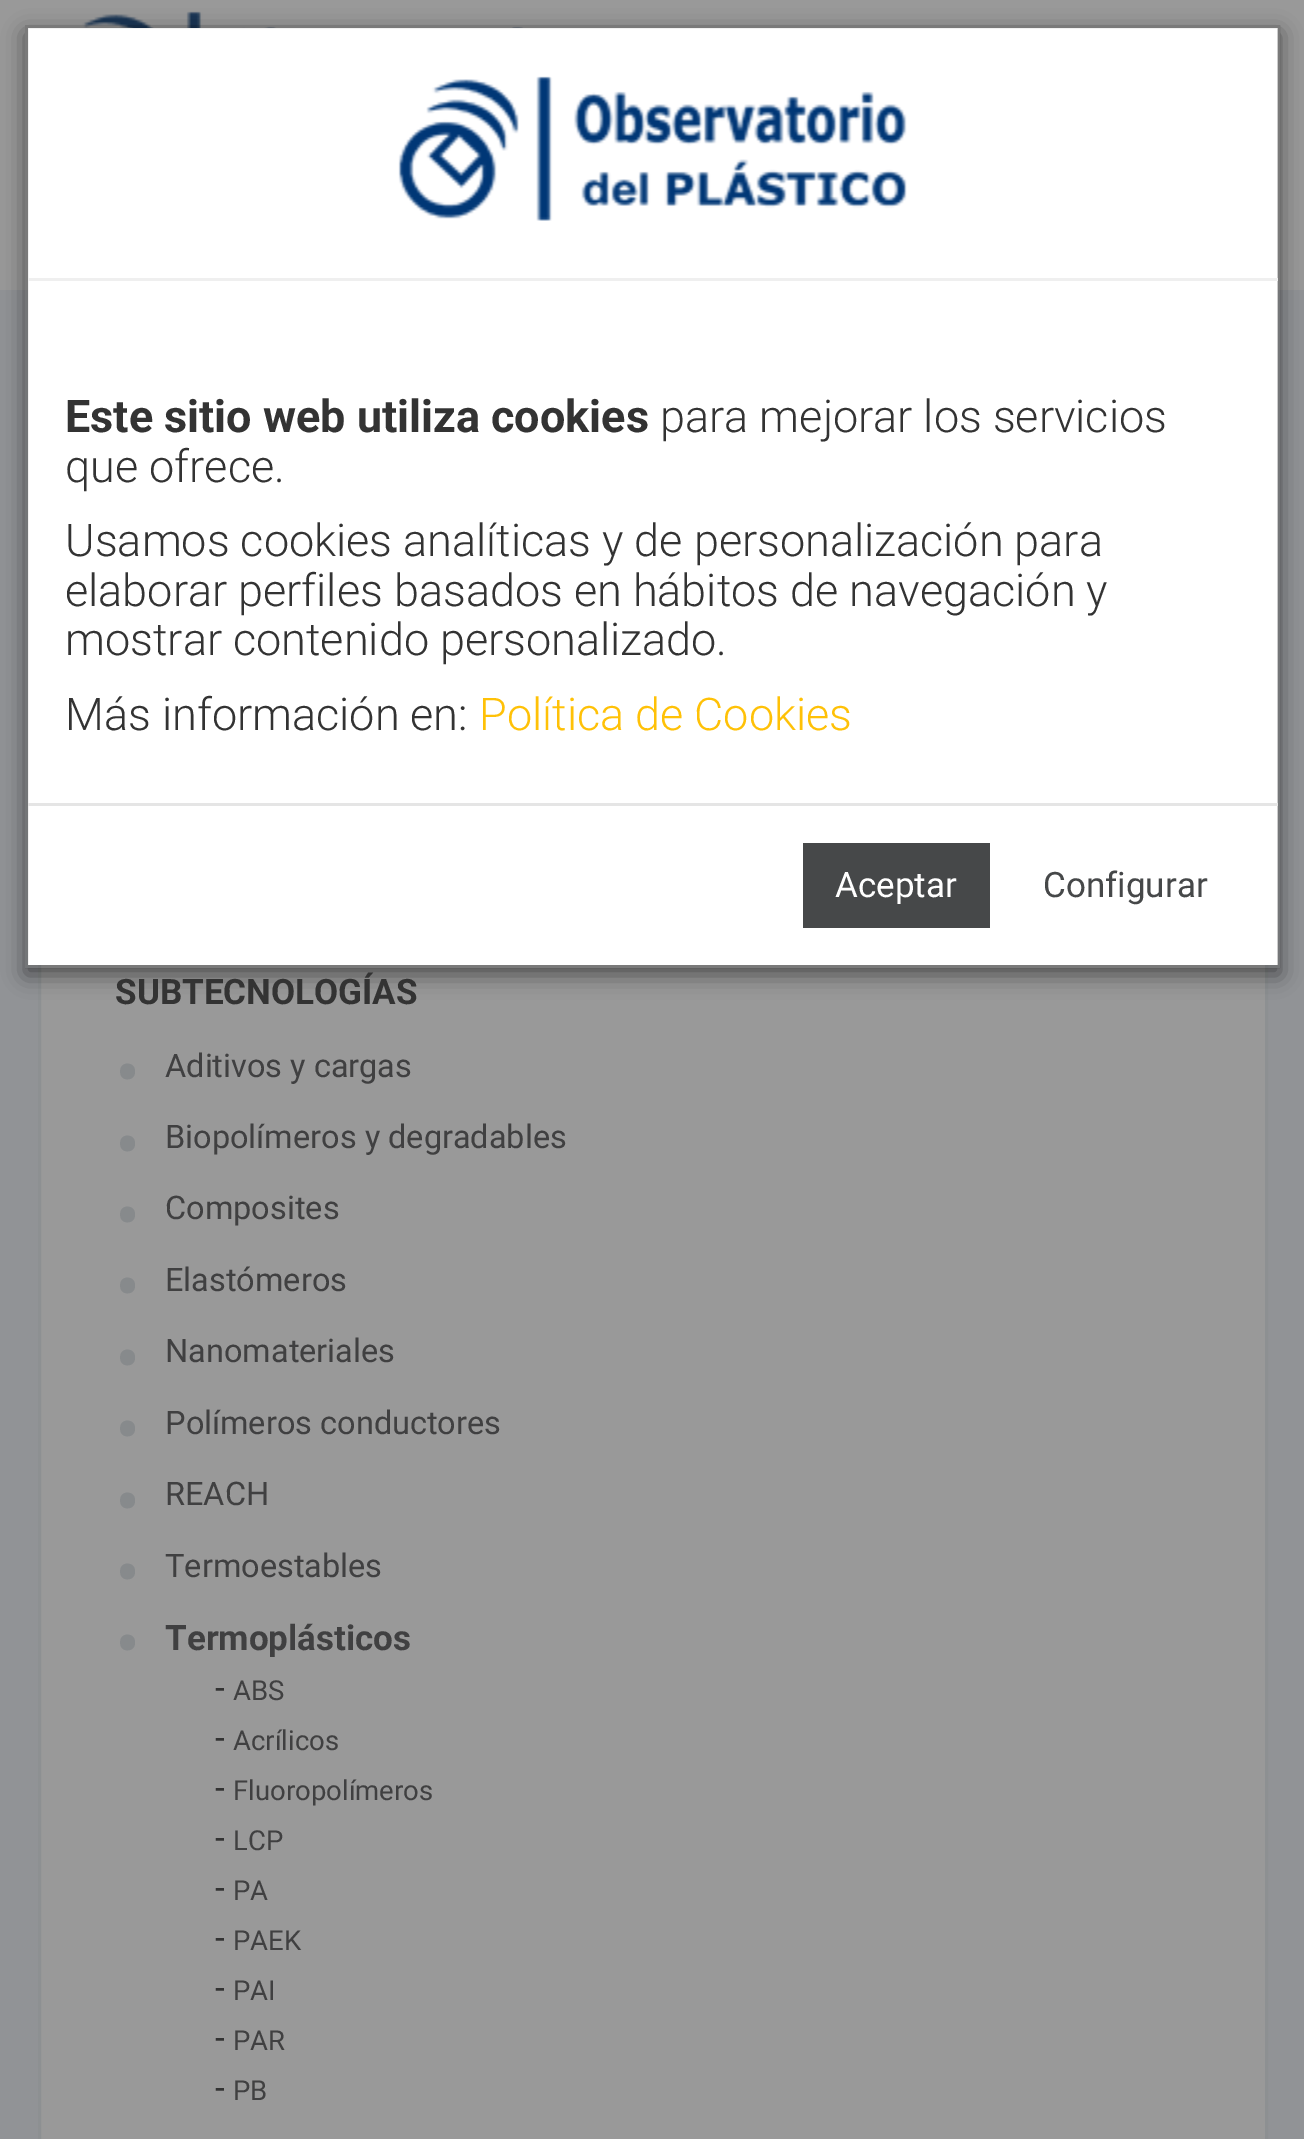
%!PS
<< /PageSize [1304 2139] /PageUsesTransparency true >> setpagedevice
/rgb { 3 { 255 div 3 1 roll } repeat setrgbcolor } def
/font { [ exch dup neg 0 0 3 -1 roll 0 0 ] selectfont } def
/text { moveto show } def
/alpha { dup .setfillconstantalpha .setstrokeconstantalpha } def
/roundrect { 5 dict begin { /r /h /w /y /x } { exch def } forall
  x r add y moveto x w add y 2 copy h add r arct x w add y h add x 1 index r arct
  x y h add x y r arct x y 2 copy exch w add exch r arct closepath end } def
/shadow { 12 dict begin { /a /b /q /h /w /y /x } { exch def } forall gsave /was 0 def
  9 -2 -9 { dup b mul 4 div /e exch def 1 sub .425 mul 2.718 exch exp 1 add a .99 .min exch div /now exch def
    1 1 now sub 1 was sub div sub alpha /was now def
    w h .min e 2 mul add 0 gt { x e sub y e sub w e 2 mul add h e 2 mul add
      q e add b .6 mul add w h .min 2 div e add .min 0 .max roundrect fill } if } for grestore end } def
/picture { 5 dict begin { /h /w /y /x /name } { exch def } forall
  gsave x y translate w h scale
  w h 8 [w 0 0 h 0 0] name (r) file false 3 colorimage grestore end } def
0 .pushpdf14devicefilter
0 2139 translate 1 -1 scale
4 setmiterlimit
153 153 153 rgb
0 0 1304 2139 rectfill
(img_01.rgb) 82 11 441 17 picture
145 147 150 rgb
0 290 1304 1849 rectfill
153 153 153 rgb
41 965 1224 1174 rectfill
141 144 146 rgb
3 setlinewidth
39.5 584.5 1227 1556 rectstroke
gsave
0 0 moveto 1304 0 rlineto 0 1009 rlineto -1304 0 rlineto closepath 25 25 moveto 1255 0 rlineto 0 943 rlineto -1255 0 rlineto closepath eoclip newpath
0 0 0 rgb
25 33 1255 942 0 11 0.5 shadow
grestore
255 255 255 rgb
28 28 1250 937 rectfill
0.2 alpha
0 0 0 rgb
26.5 26.5 1252 940 rectstroke
1 alpha
239 239 239 rgb
28 278 1250 3 rectfill
(img_02.rgb) 398 76 509 145 picture
229 229 229 rgb
28 803 1250 3 rectfill
70 72 73 rgb
803 843 187 85 rectfill
/Roboto-Bold 45 font
51 51 51 rgb
(Este sitio web utiliza cookies) 65 432 text
/Roboto-Light 45 font
(para mejorar los servicios) 660 432 text
(que ofrece.) 65 482 text
(Usamos cookies analíticas y de personalización para) 65 556 text
(elaborar perfiles basados en hábitos de navegación y) 65 606 text
(mostrar contenido personalizado.) 65 655 text
(Más información en:) 65 730 text
255 193 7 rgb
(Política de Cookies) 479 730 text
/Roboto-Regular 35 font
255 255 255 rgb
(Aceptar) 835 897 text
70 72 73 rgb
(Configurar) 1043 897 text
/Roboto-Bold 35 font
51 51 51 rgb
(SUBTECNOLOGÍAS) 115 1004 text
/Roboto-Regular 75 font
135 138 140 rgb
(•) 115 1099 text
/Roboto-Regular 32.5 font
64 64 65 rgb
(Aditivos y cargas) 165 1077 text
/Roboto-Regular 75 font
135 138 140 rgb
(•) 115 1171 text
/Roboto-Regular 32.5 font
64 64 65 rgb
(Biopolímeros y degradables) 165 1148 text
/Roboto-Regular 75 font
135 138 140 rgb
(•) 115 1242 text
/Roboto-Regular 32.5 font
64 64 65 rgb
(Composites) 165 1219 text
/Roboto-Regular 75 font
135 138 140 rgb
(•) 115 1313 text
/Roboto-Regular 32.5 font
64 64 65 rgb
(Elastómeros) 165 1291 text
/Roboto-Regular 75 font
135 138 140 rgb
(•) 115 1385 text
/Roboto-Regular 32.5 font
64 64 65 rgb
(Nanomateriales) 165 1362 text
/Roboto-Regular 75 font
135 138 140 rgb
(•) 115 1456 text
/Roboto-Regular 32.5 font
64 64 65 rgb
(Polímeros conductores) 165 1434 text
/Roboto-Regular 75 font
135 138 140 rgb
(•) 115 1528 text
/Roboto-Regular 32.5 font
64 64 65 rgb
(REACH) 165 1505 text
/Roboto-Regular 75 font
135 138 140 rgb
(•) 115 1599 text
/Roboto-Regular 32.5 font
64 64 65 rgb
(Termoestables) 165 1577 text
/Roboto-Regular 75 font
135 138 140 rgb
(•) 115 1670 text
/Roboto-Bold 35 font
64 64 65 rgb
(Termoplásticos) 165 1650 text
/Roboto-Regular 35 font
51 51 51 rgb
(-) 215 1700 text
/Roboto-Regular 27.5 font
64 64 65 rgb
(ABS) 233 1700 text
/Roboto-Regular 35 font
51 51 51 rgb
(-) 215 1750 text
/Roboto-Regular 27.5 font
64 64 65 rgb
(Acrílicos) 233 1750 text
/Roboto-Regular 35 font
51 51 51 rgb
(-) 215 1800 text
/Roboto-Regular 27.5 font
64 64 65 rgb
(Fluoropolímeros) 233 1800 text
/Roboto-Regular 35 font
51 51 51 rgb
(-) 215 1850 text
/Roboto-Regular 27.5 font
64 64 65 rgb
(LCP) 233 1850 text
/Roboto-Regular 35 font
51 51 51 rgb
(-) 215 1900 text
/Roboto-Regular 27.5 font
64 64 65 rgb
(PA) 233 1900 text
/Roboto-Regular 35 font
51 51 51 rgb
(-) 215 1950 text
/Roboto-Regular 27.5 font
64 64 65 rgb
(PAEK) 233 1950 text
/Roboto-Regular 35 font
51 51 51 rgb
(-) 215 2000 text
/Roboto-Regular 27.5 font
64 64 65 rgb
(PAI) 233 2000 text
/Roboto-Regular 35 font
51 51 51 rgb
(-) 215 2050 text
/Roboto-Regular 27.5 font
64 64 65 rgb
(PAR) 233 2050 text
/Roboto-Regular 35 font
51 51 51 rgb
(-) 215 2100 text
/Roboto-Regular 27.5 font
64 64 65 rgb
(PB) 233 2100 text
.poppdf14devicefilter showpage
